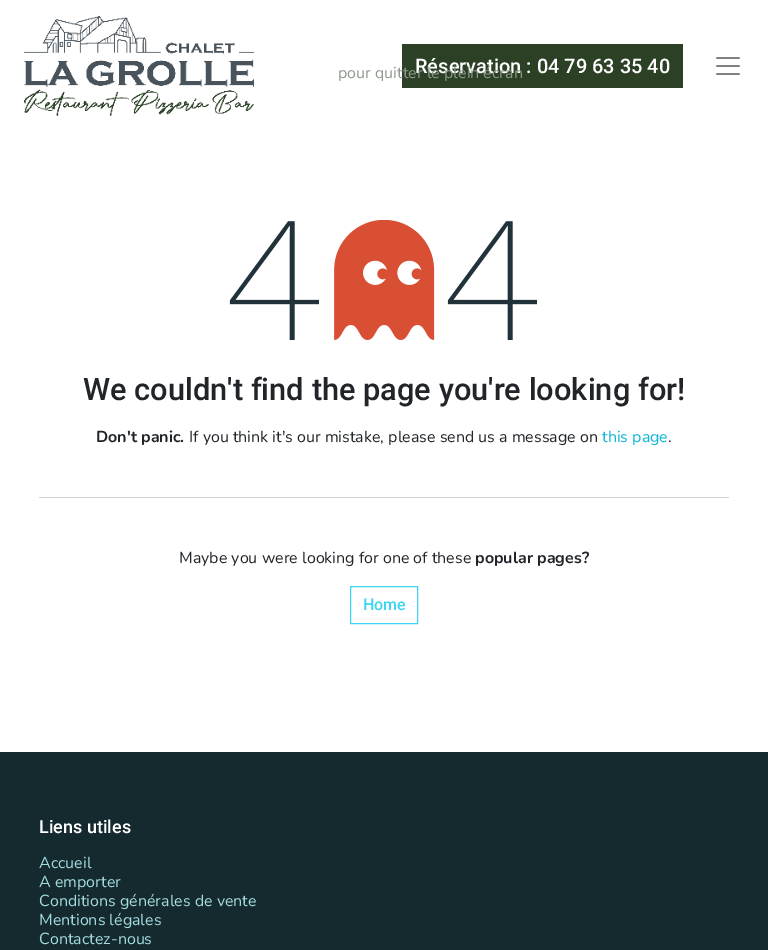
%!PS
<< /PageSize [768 950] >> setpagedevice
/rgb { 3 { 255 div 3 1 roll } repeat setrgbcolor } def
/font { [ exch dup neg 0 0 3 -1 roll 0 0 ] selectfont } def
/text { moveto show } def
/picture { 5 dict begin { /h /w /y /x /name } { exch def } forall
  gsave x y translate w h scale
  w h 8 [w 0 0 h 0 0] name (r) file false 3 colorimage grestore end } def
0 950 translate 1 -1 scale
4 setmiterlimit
255 255 255 rgb
0 0 768 950 rectfill
(img_01.rgb) 24 16 230 100 picture
44 64 38 rgb
402 44 281 44 rectfill
(img_02.rgb) 716 57 24 18 picture
(img_03.rgb) 229 220 308 120 picture
206 212 218 rgb
39 497 690 1 rectfill
61 213 243 rgb
350.5 586.5 67 37 rectstroke
20 42 46 rgb
0 752 768 198 rectfill
/Roboto-Medium 20 font
255 255 255 rgb
(Réservation : 04 79 63 35 40) 415 73 text
/Roboto-Medium 30.8 font
33 37 41 rgb
(We couldn't find the page you're looking for!) 83 400 text
/Nunito-Bold 16 font
(Don't panic.) 96 442 text
/Nunito-Regular 16 font
(If you think it's our mistake, please send us a message on) 189 442 text
13 181 214 rgb
(this page) 602 442 text
33 37 41 rgb
(.) 668 442 text
(Maybe you were looking for one of these) 179 563 text
/Nunito-Bold 16 font
(popular pages?) 475 563 text
/Roboto-Medium 16 font
61 213 243 rgb
(Home) 363 610 text
/Roboto-Medium 18 font
255 255 255 rgb
(Liens utiles) 39 833 text
/Nunito-Regular 16 font
165 220 225 rgb
(Accueil) 39 868 text
(A emporter) 39 887 text
(Conditions générales de vente) 39 906 text
(Mentions légales) 39 925 text
(Contactez-nous) 39 944 text
142 153 139 rgb
(pour quitter le plein écran) 338 78 text
showpage
